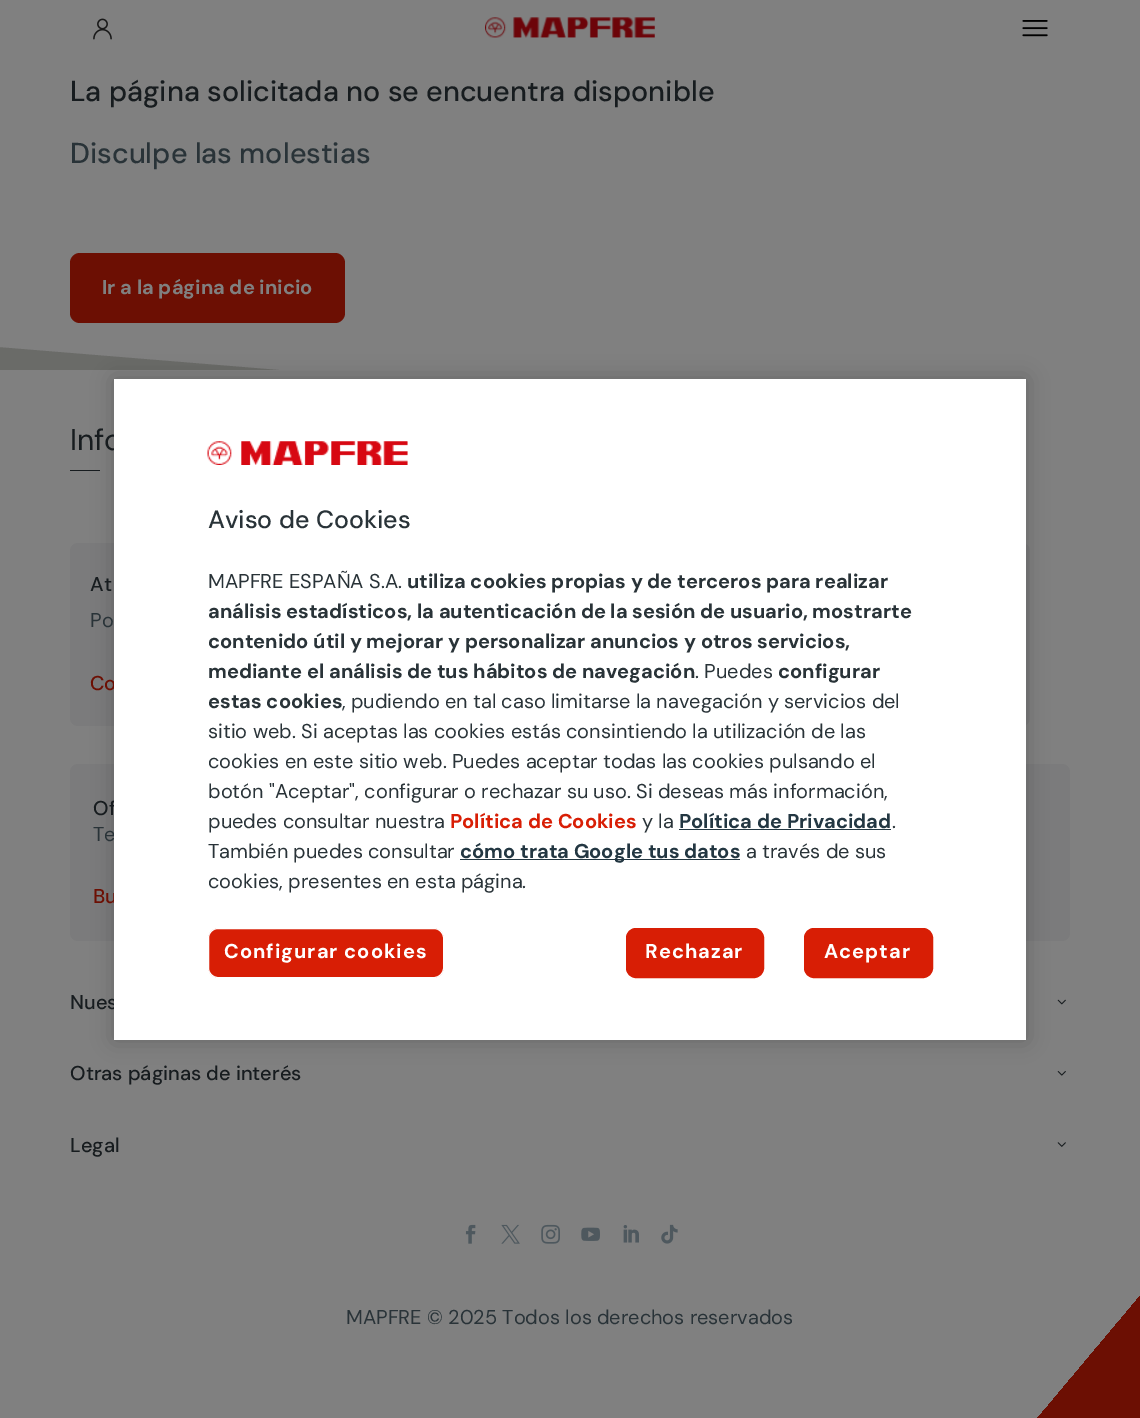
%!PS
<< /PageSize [1140 1418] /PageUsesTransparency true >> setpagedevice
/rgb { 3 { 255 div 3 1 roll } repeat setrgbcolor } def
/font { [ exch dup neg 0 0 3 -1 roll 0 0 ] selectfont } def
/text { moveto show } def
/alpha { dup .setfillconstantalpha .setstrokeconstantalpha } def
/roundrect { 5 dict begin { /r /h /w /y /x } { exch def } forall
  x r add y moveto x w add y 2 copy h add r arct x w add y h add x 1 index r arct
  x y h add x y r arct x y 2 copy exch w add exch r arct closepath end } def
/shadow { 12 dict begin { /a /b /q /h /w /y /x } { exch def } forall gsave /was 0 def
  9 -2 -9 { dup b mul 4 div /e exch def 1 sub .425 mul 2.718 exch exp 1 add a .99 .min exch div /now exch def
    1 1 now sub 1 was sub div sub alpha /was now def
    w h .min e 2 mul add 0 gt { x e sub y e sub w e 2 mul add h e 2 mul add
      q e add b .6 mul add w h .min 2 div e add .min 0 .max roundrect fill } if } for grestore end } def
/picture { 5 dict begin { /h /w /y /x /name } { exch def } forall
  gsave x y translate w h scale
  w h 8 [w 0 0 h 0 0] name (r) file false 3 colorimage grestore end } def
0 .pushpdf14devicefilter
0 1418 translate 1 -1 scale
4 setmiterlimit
128 128 128 rgb
0 0 1140 1418 rectfill
106 107 104 rgb
0 217 moveto 0 153 rlineto 1140 0 rlineto 0 -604 rlineto closepath fill
128 128 128 rgb
0 -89 moveto 0 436 rlineto 282 23 rlineto 858 0 rlineto 0 -367 rlineto closepath fill
1105 0 35 3 rectfill
(img_01.rgb) 93 18 19 22 picture
(img_02.rgb) 485 17 170 21 picture
(img_03.rgb) 1022 20 26 17 picture
108 15 3 rgb
70 253 275 70 10 roundrect fill
23 28 31 rgb
70 470 30 1 rectfill
123 123 124 rgb
70 543 960 183 8 roundrect fill
70 764 1000 177 8 roundrect fill
gsave 1037 1296 moveto 103 0 rlineto 0 122 rlineto -103 0 rlineto closepath clip newpath
<< /ShadingType 2 /ColorSpace /DeviceRGB /Coords [123 819 1017 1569] /Extend [true true] /Function << /FunctionType 3 /Domain [0 1] /Functions [<< /FunctionType 2 /Domain [0 1] /C0 [0.502 0.502 0.502] /C1 [0.502 0.502 0.502] /N 1 >> << /FunctionType 2 /Domain [0 1] /C0 [0.424 0.059 0.012] /C1 [0.424 0.059 0.012] /N 1 >>] /Bounds [0.93] /Encode [0 1 0 1] >> >> shfill grestore
(img_04.rgb) 1057 999 9 6 picture
(img_05.rgb) 1057 1071 9 5 picture
(img_06.rgb) 1057 1142 9 5 picture
(img_07.rgb) 465 1224 11 20 picture
(img_08.rgb) 501 1224 19 20 picture
(img_09.rgb) 541 1224 19 20 picture
(img_10.rgb) 581 1227 19 14 picture
(img_11.rgb) 623 1225 16 18 picture
(img_12.rgb) 661 1224 17 20 picture
0 0 0 rgb
114 379 912 661 0 11 0.2 shadow
/DMSans-Medium 28.75 font
23 28 31 rgb
(La página solicitada no se encuentra disponible) 70 101 text
41 51 56 rgb
(Disculpe las molestias) 70 163 text
/DMSans-Bold 20 font
128 128 128 rgb
(Ir a la página de inicio) 102 294 text
/DMSans-Regular 30 font
23 28 31 rgb
(Info) 70 450 text
/DMSans-Medium 20 font
(At) 90 591 text
/DMSans-Regular 20 font
41 51 56 rgb
(Po) 90 627 text
/DMSans-Medium 20 font
108 15 3 rgb
(Co) 90 690 text
23 28 31 rgb
(Of) 93 815 text
/DMSans-Regular 20 font
41 51 56 rgb
(Te) 93 841 text
/DMSans-Medium 20 font
108 15 3 rgb
(Bu) 93 903 text
23 28 31 rgb
(Nues) 70 1009 text
(Otras páginas de interés) 70 1080 text
(Legal) 70 1152 text
/DMSans-Regular 20 font
41 51 56 rgb
(MAPFRE © 2025 Todos los derechos reservados) 346 1324 text
255 255 255 rgb
114 379 912 661 rectfill
(img_13.rgb) 207 441 201 24 picture
/DMSans-Medium 25 font
41 51 56 rgb
(Aviso de Cookies) 208 528 text
/DMSans-Regular 20 font
(MAPFRE ESPAÑA S.A.) 208 588 text
/DMSans-Bold 20 font
(utiliza cookies propias y de terceros para realizar) 407 588 text
(análisis estadísticos, la autenticación de la sesión de usuario, mostrarte) 208 618 text
(contenido útil y mejorar y personalizar anuncios y otros servicios,) 208 648 text
(mediante el análisis de tus hábitos de navegación) 208 678 text
/DMSans-Regular 20 font
(. Puedes) 695 678 text
/DMSans-Bold 20 font
(configurar) 778 678 text
(estas cookies) 208 708 text
/DMSans-Regular 20 font
(, pudiendo en tal caso limitarse la navegación y servicios del) 342 708 text
(sitio web. Si aceptas las cookies estás consintiendo la utilización de las) 208 738 text
(cookies en este sitio web. Puedes aceptar todas las cookies pulsando el) 208 768 text
(botón "Aceptar", configurar o rechazar su uso. Si deseas más información,) 208 798 text
(puedes consultar nuestra) 208 828 text
/DMSans-Bold 20 font
216 30 5 rgb
(Política de Cookies) 450 828 text
/DMSans-Regular 20 font
41 51 56 rgb
(y la) 642 828 text
/DMSans-Bold 20 font
35 55 66 rgb
(Política de Privacidad) 679 828 text
679 829 212 1 rectfill
/DMSans-Regular 20 font
41 51 56 rgb
(.) 892 828 text
(También puedes consultar) 208 858 text
35 55 66 rgb
460 859 280 1 rectfill
/DMSans-Bold 20 font
(cómo trata Google tus datos) 460 858 text
/DMSans-Regular 20 font
41 51 56 rgb
(a través de sus) 746 858 text
(cookies, presentes en esta página.) 208 888 text
216 30 5 rgb
208.5 928.5 235 49 9.5 roundrect gsave fill grestore
255 255 255 rgb
stroke
/DMSans-Bold 20 font
224 958 moveto 1 0 (Configurar cookies) ashow
216 30 5 rgb
626.5 928.5 137 49 9.5 roundrect gsave fill grestore
stroke
255 255 255 rgb
645 958 moveto 1 0 (Rechazar) ashow
216 30 5 rgb
804.5 928.5 128 49 9.5 roundrect gsave fill grestore
stroke
255 255 255 rgb
824 958 moveto 1 0 (Aceptar) ashow
.poppdf14devicefilter showpage
